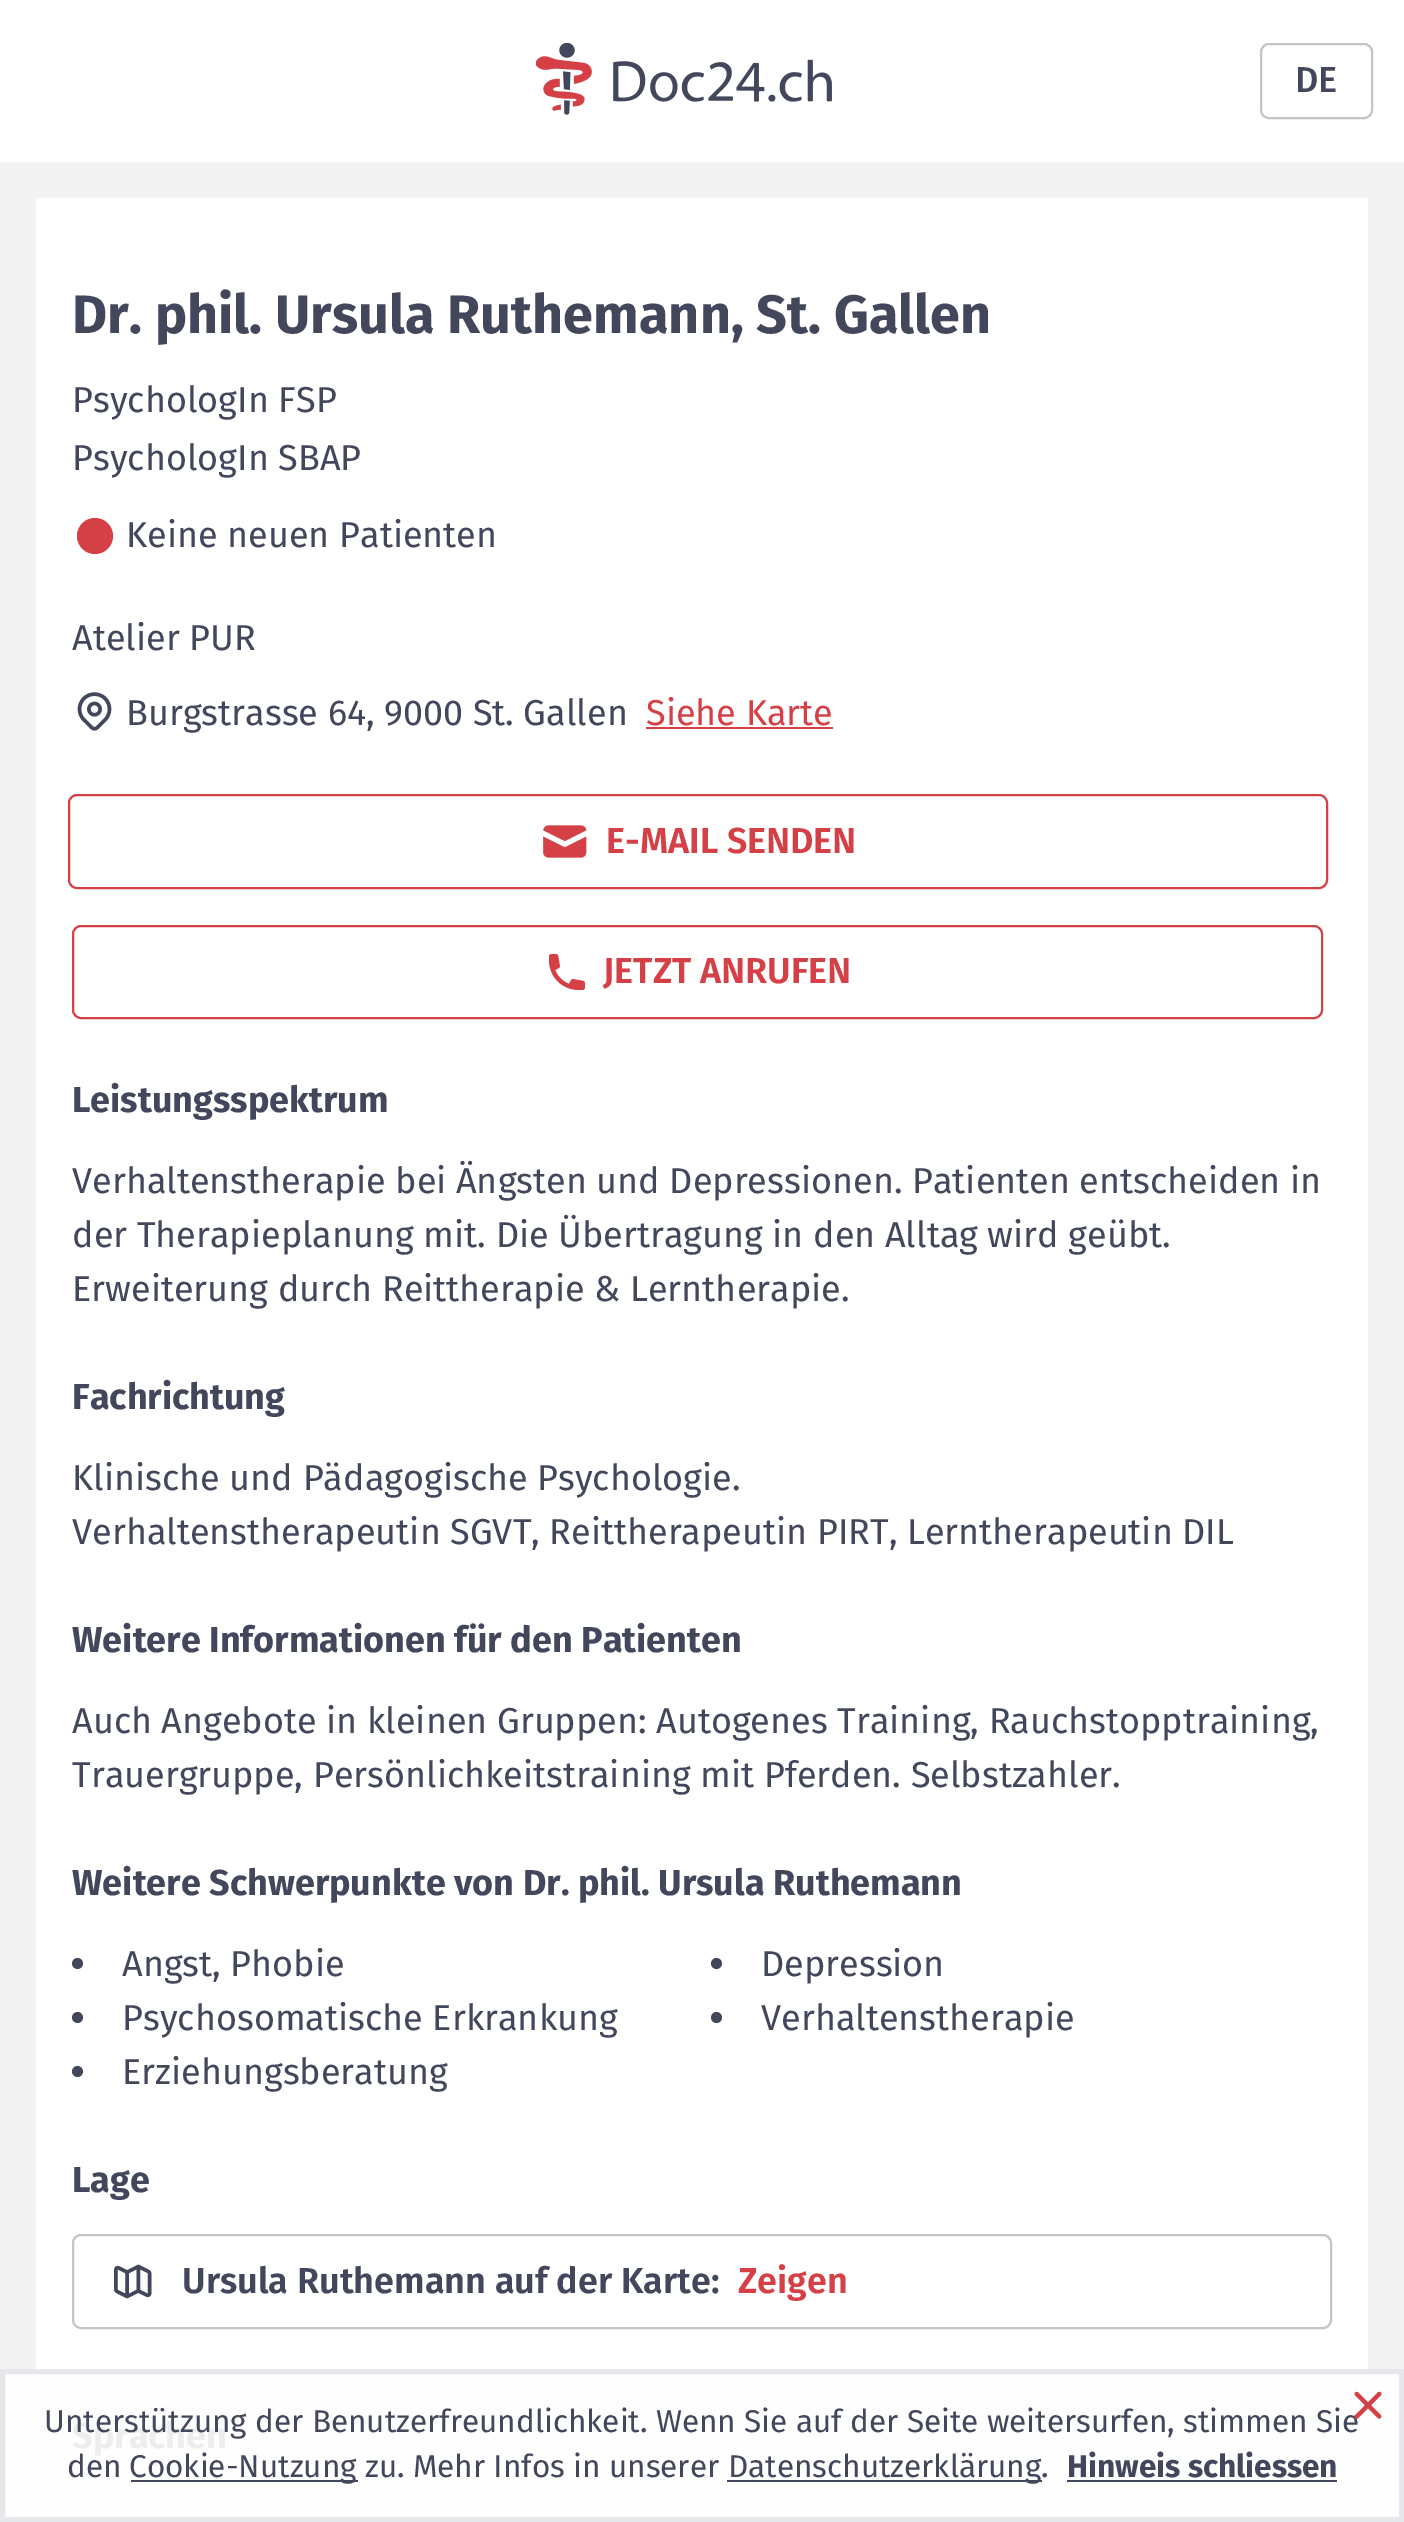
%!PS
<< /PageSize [1404 2522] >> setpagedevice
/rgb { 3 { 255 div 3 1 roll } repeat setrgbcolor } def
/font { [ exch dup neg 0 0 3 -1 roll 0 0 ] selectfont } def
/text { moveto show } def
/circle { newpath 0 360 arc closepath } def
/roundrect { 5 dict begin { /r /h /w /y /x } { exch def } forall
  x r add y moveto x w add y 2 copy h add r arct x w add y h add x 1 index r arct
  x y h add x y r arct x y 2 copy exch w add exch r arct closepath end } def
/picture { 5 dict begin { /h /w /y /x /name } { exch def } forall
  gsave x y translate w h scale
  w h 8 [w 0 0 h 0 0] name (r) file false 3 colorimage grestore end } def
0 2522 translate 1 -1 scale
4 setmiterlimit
243 243 243 rgb
0 0 1404 2522 rectfill
254 254 254 rgb
5 2374 1394 143 rectfill
255 255 255 rgb
0 0 1404 162 rectfill
(img_01.rgb) 536 43 296 72 picture
196 196 196 rgb
2 setlinewidth
1261 44 111 74 8 roundrect stroke
255 255 255 rgb
36 198 1332 2171 rectfill
212 64 69 rgb
95 536 18 circle fill
(img_02.rgb) 77 692 35 39 picture
646 727 187 2 rectfill
69 795 1258 93 8 roundrect stroke
(img_03.rgb) 543 825 44 33 picture
73 926 1249 92 8 roundrect stroke
(img_04.rgb) 549 954 36 36 picture
66 71 91 rgb
77.5 1963.5 5.5 circle fill
716.5 1963.5 5.5 circle fill
77.5 2017.5 5.5 circle fill
716.5 2017.5 5.5 circle fill
77.5 2071.5 5.5 circle fill
196 196 196 rgb
73 2235 1258 93 8 roundrect stroke
(img_05.rgb) 113 2264 39 35 picture
229 231 235 rgb
5 setlinewidth
2.5 2371.5 1399 148 rectstroke
66 71 91 rgb
131 2480 227 2 rectfill
727 2480 315 2 rectfill
1067 2480 270 2 rectfill
/FiraSans-Medium 36 font
(DE) 1295 92 text
/FiraSans-Bold 54 font
(Dr. phil. Ursula Ruthemann, St. Gallen) 72 333 text
/FiraSans-Regular 36 font
(PsychologIn FSP) 72 412 text
(PsychologIn SBAP) 72 470 text
(Keine neuen Patienten) 126 547 text
(Atelier PUR) 72 650 text
(Burgstrasse 64, 9000 St. Gallen) 126 725 text
212 64 69 rgb
(Siehe Karte) 646 725 text
/FiraSans-SemiBold 36 font
(E-MAIL SENDEN) 606 853 text
(JETZT ANRUFEN) 603 983 text
/FiraSans-Bold 36 font
66 71 91 rgb
(Leistungsspektrum) 72 1112 text
/FiraSans-Regular 36 font
(Verhaltenstherapie bei Ängsten und Depressionen. Patienten entscheiden in) 72 1193 text
(der Therapieplanung mit. Die Übertragung in den Alltag wird geübt.) 72 1247 text
(Erweiterung durch Reittherapie & Lerntherapie.) 72 1301 text
/FiraSans-Bold 36 font
(Fachrichtung) 72 1409 text
/FiraSans-Regular 36 font
(Klinische und Pädagogische Psychologie.) 72 1490 text
(Verhaltenstherapeutin SGVT, Reittherapeutin PIRT, Lerntherapeutin DIL) 72 1544 text
/FiraSans-Bold 36 font
(Weitere Informationen für den Patienten) 72 1652 text
/FiraSans-Regular 36 font
(Auch Angebote in kleinen Gruppen: Autogenes Training, Rauchstopptraining,) 72 1733 text
(Trauergruppe, Persönlichkeitstraining mit Pferden. Selbstzahler.) 72 1787 text
/FiraSans-Bold 36 font
(Weitere Schwerpunkte von Dr. phil. Ursula Ruthemann) 72 1895 text
/FiraSans-Regular 36 font
(Angst, Phobie) 122 1976 text
(Depression) 761 1976 text
(Psychosomatische Erkrankung) 122 2030 text
(Verhaltenstherapie) 761 2030 text
(Erziehungsberatung) 122 2084 text
/FiraSans-Bold 36 font
(Lage) 72 2192 text
/FiraSans-SemiBold 36 font
(Ursula Ruthemann auf der Karte:) 182 2293 text
212 64 69 rgb
(Zeigen) 738 2293 text
/FiraSans-Bold 36 font
236 237 239 rgb
(Sprachen) 72 2448 text
/FiraSans-Regular 31.5 font
66 71 91 rgb
(Unterstützung der Benutzerfreundlichkeit. Wenn Sie auf der Seite weitersurfen, stimmen Sie) 44 2432 text
(den) 67 2477 text
(Cookie-Nutzung zu. Mehr Infos in unserer) 129 2477 text
(Datenschutzerklärung.) 728 2477 text
/FiraSans-Bold 31.5 font
(Hinweis schliessen) 1067 2477 text
(img_06.rgb) 1354 2391 28 28 picture
showpage
